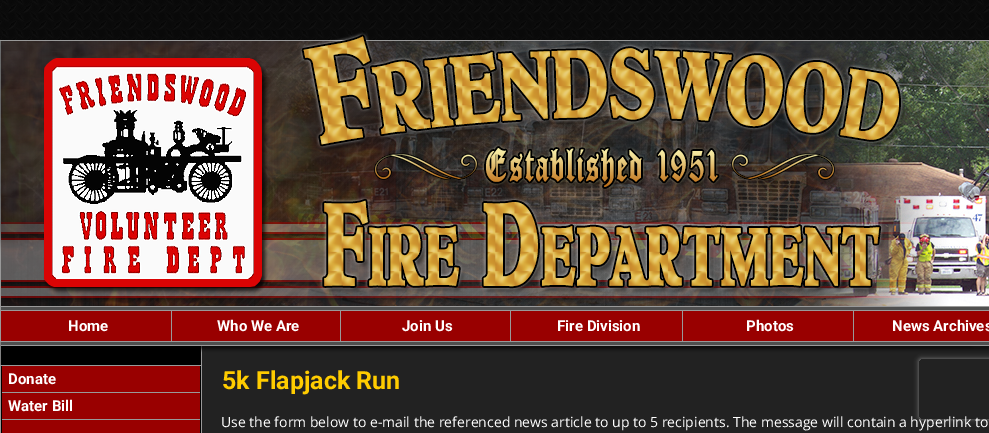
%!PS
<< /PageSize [989 433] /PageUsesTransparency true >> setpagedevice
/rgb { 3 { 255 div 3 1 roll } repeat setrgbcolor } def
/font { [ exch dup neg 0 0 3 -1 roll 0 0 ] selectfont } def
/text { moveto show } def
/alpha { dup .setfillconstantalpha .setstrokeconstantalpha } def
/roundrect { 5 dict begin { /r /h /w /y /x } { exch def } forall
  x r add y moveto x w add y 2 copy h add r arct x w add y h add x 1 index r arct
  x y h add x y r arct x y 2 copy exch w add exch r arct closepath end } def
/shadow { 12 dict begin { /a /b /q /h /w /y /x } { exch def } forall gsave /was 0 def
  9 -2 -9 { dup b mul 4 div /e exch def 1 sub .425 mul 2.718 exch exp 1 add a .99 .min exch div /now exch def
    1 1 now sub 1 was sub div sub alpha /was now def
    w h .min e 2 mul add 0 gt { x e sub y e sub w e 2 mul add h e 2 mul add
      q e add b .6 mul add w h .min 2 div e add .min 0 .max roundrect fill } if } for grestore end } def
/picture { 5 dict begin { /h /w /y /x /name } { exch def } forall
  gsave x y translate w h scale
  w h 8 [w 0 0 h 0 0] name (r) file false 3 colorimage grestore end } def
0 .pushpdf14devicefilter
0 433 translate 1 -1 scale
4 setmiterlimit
255 255 255 rgb
0 0 989 433 rectfill
(img_01.rgb) 0 0 989 40 picture
(img_02.rgb) 0 32 989 278 picture
(img_03.rgb) 764 41 225 265 picture
153 153 153 rgb
0 310 989 32 rectfill
153 0 0 rgb
1 311 988 30 rectfill
153 153 153 rgb
171 311 1 30 rectfill
340 311 1 30 rectfill
510 311 1 30 rectfill
682 311 1 30 rectfill
853 311 1 30 rectfill
(img_04.rgb) 0 342 989 23 picture
34 34 34 rgb
202 365 787 68 rectfill
gsave
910 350 moveto 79 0 rlineto 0 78 rlineto -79 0 rlineto closepath 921 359 moveto 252 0 rlineto 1 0 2 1 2 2 rcurveto 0 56 rlineto 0 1 -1 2 -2 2 rcurveto -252 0 rlineto -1 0 -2 -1 -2 -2 rcurveto 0 -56 rlineto 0 -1 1 -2 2 -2 rcurveto closepath eoclip newpath
128 128 128 rgb
919 359 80 60 2 2.5 1 shadow
grestore
153 153 153 rgb
0 365 1 68 rectfill
0 0 0 rgb
1 366 200 67 rectfill
153 153 153 rgb
1 365 200 1 rectfill
153 0 0 rgb
2 366 198 67 rectfill
153 153 153 rgb
2 392 198 1 rectfill
2 419 198 1 rectfill
201 365 1 68 rectfill
/Roboto-Bold 15 font
255 255 255 rgb
(Home) 68 331 text
(Who We Are) 217 331 text
(Join Us) 402 331 text
(Fire Division) 557 331 text
(Photos) 746 331 text
(News Archives) 892 331 text
(Donate) 8 384 text
(Water Bill) 8 411 text
/Roboto-Bold 25 font
255 204 0 rgb
(5k Flapjack Run) 222 389 text
/OpenSans-Regular 14 font
255 255 255 rgb
(Use the form below to e-mail the referenced news article to up to 5 recipients. The message will contain a hyperlink to) 221 427 text
.poppdf14devicefilter showpage
